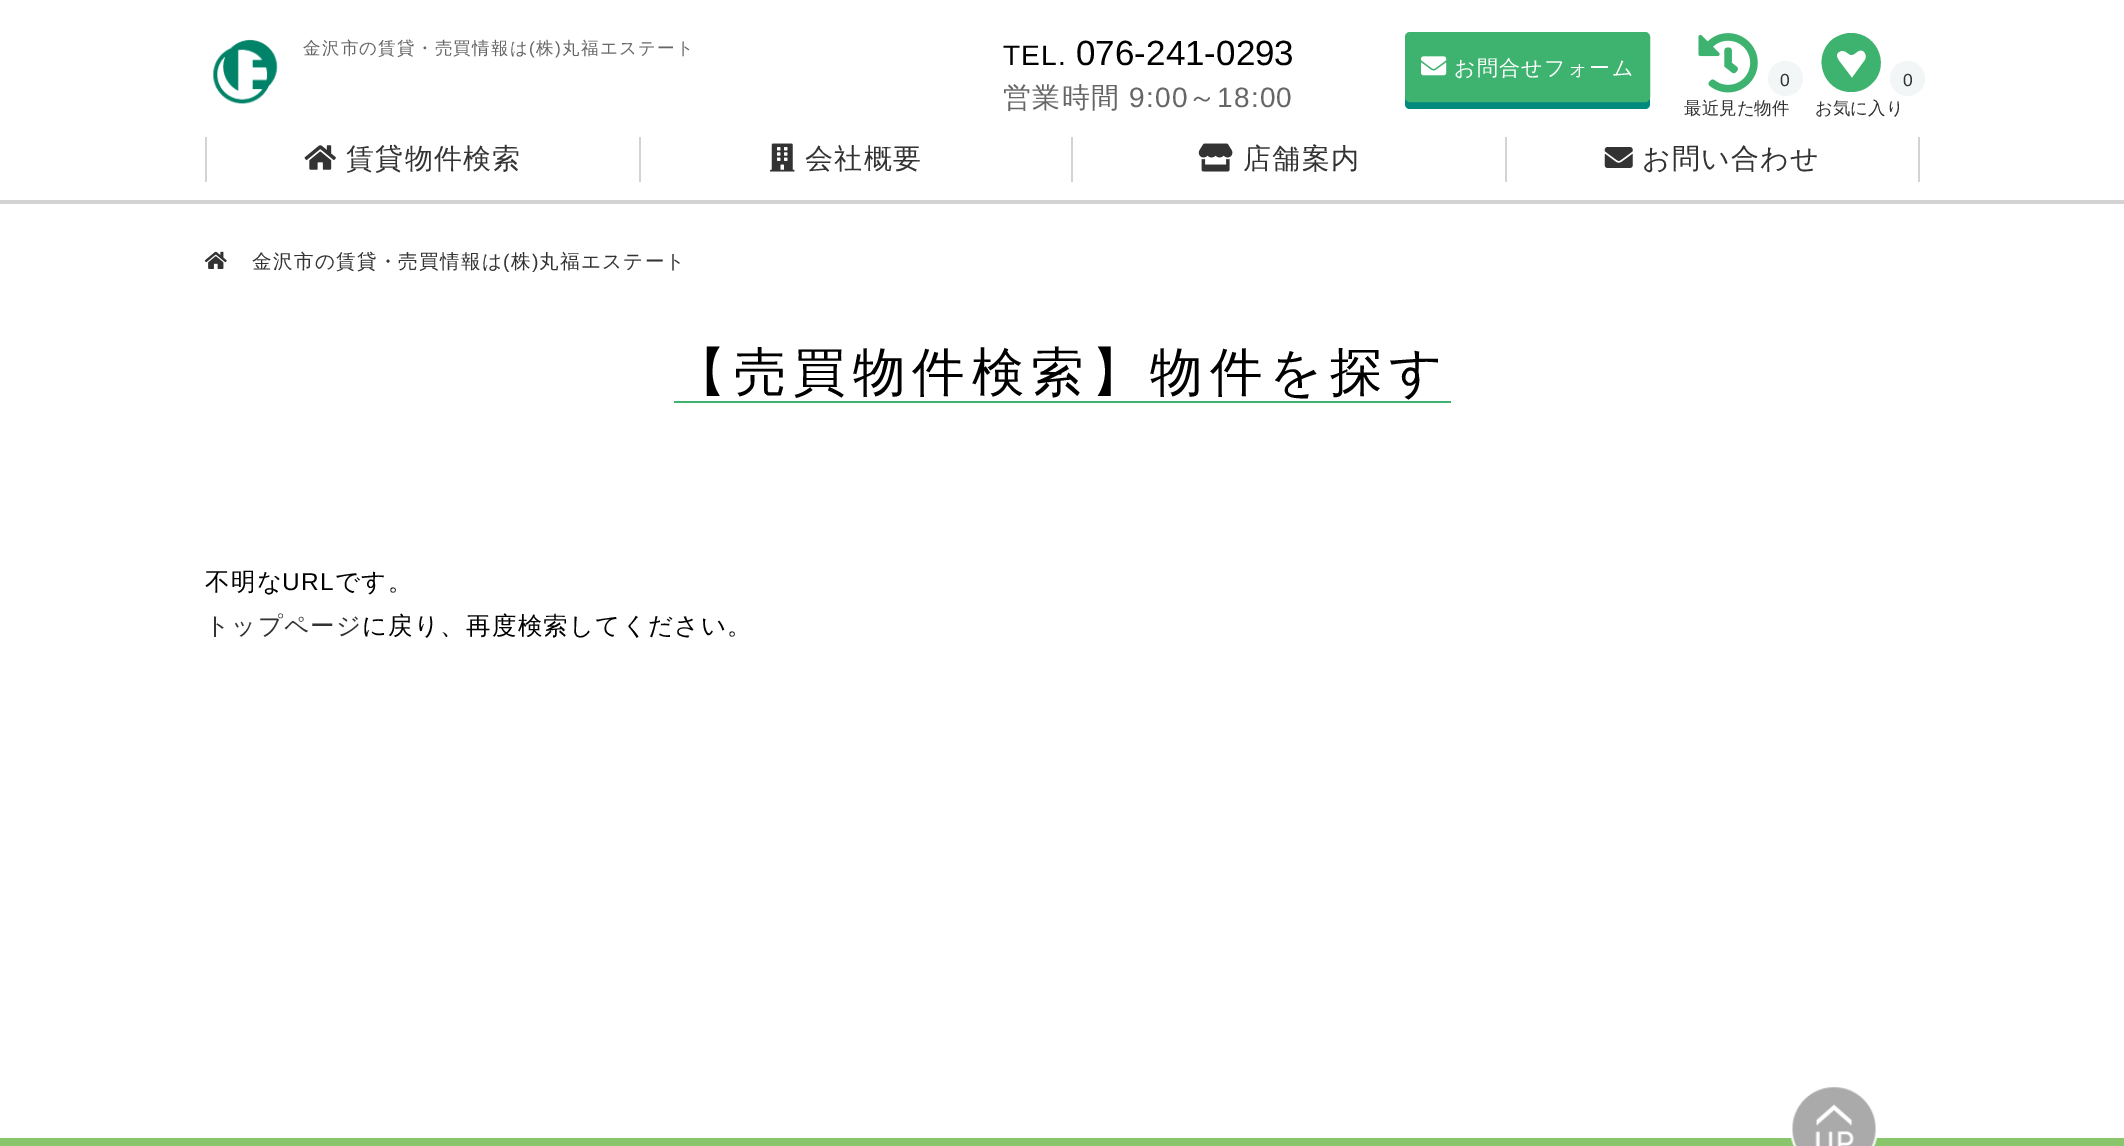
%!PS
<< /PageSize [2124 1146] >> setpagedevice
/rgb { 3 { 255 div 3 1 roll } repeat setrgbcolor } def
/font { [ exch dup neg 0 0 3 -1 roll 0 0 ] selectfont } def
/text { moveto show } def
/circle { newpath 0 360 arc closepath } def
/roundrect { 5 dict begin { /r /h /w /y /x } { exch def } forall
  x r add y moveto x w add y 2 copy h add r arct x w add y h add x 1 index r arct
  x y h add x y r arct x y 2 copy exch w add exch r arct closepath end } def
/picture { 5 dict begin { /h /w /y /x /name } { exch def } forall
  gsave x y translate w h scale
  w h 8 [w 0 0 h 0 0] name (r) file false 3 colorimage grestore end } def
0 1146 translate 1 -1 scale
4 setmiterlimit
255 255 255 rgb
0 0 2124 1146 rectfill
211 211 211 rgb
0 200 2124 4 rectfill
(img_01.rgb) 213 39 65 65 picture
0 138 126 rgb
1405 42 moveto 0 62 rlineto 0 3 2 5 5 5 rcurveto 235 0 rlineto 3 0 5 -2 5 -5 rcurveto 0 -6 rlineto -1 2 -3 4 -5 4 rcurveto -235 0 rlineto -2 0 -5 -3 -5 -6 rcurveto closepath fill
62 179 112 rgb
1406 33 243 68 4 roundrect gsave fill grestore
2 setlinewidth
stroke
(img_02.rgb) 1421 56 26 20 picture
(img_03.rgb) 1698 33 60 60 picture
242 246 247 rgb
1785.5 78.5 17.5 circle fill
62 179 112 rgb
1851 33 moveto -6 0 -12 2 -18 6 rcurveto -22 17 -10 53 18 53 rcurveto 7 0 13 -2 18 -6 rcurveto 23 -17 10 -53 -18 -53 rcurveto closepath 1865 60 moveto -13 18 rlineto -9 -12 rlineto -3 -4 -11 -12 -2 -15 rcurveto 3 -1 5 1 8 3 rcurveto 5 4 8 -6 14 -3 rcurveto 3 2 4 6 2 9 rcurveto closepath fill
242 246 247 rgb
1907.5 78.5 17.5 circle fill
211 211 211 rgb
205 137 2 45 rectfill
(img_04.rgb) 304 145 32 25 picture
639 137 2 45 rectfill
(img_05.rgb) 770 143 25 29 picture
1071 137 2 45 rectfill
(img_06.rgb) 1198 143 35 29 picture
1918 137 2 45 rectfill
1505 137 2 45 rectfill
(img_07.rgb) 1604 147 29 21 picture
(img_08.rgb) 204 251 23 18 picture
62 179 112 rgb
674 401 777 2 rectfill
136 197 107 rgb
0 1138 2124 8 rectfill
(img_09.rgb) 1790 1087 88 59 picture
/WenQuanYiZenHei-Medium 17.5 font
102 102 102 rgb
303 54 moveto 1.25 0 (金沢市の賃貸・売買情報は) ashow
/LiberationSans-Regular 17.5 font
529 54 moveto 1.25 0 (\() ashow
/WenQuanYiZenHei-Medium 17.5 font
536 54 moveto 1.25 0 (株) ashow
/LiberationSans-Regular 17.5 font
555 54 moveto 1.25 0 (\)) ashow
/WenQuanYiZenHei-Medium 17.5 font
562 54 moveto 1.25 0 (丸福エステート) ashow
/LiberationSans-Regular 28 font
0 0 0 rgb
1003 65 moveto 1.25 0 (TEL.) ashow
/LiberationSans-Regular 35 font
(076-241-0293) 1076 65 text
/WenQuanYiZenHei-Medium 28 font
102 102 102 rgb
1003 107 moveto 1.25 0 (営業時間) ashow
/LiberationSans-Regular 28 font
1129 107 moveto 1.25 0 (9:00) ashow
/WenQuanYiZenHei-Medium 28 font
1188 107 moveto 1.25 0 (～) ashow
/LiberationSans-Regular 28 font
1217 107 moveto 1.25 0 (18:00) ashow
/WenQuanYiZenHei-Medium 21 font
255 255 255 rgb
1454 75 moveto 1.25 0 (お問合せフォーム) ashow
/LiberationSans-Regular 17.5 font
51 51 51 rgb
(0) 1780 86 text
/WenQuanYiZenHei-Medium 17.5 font
(最近見た物件) 1684 114 text
/LiberationSans-Regular 17.5 font
(0) 1903 86 text
/WenQuanYiZenHei-Medium 17.5 font
(お気に入り) 1815 114 text
/WenQuanYiZenHei-Medium 28 font
346 168 moveto 1.25 0 (賃貸物件検索) ashow
805 168 moveto 1.25 0 (会社概要) ashow
1243 168 moveto 1.25 0 (店舗案内) ashow
1642 168 moveto 1.25 0 (お問い合わせ) ashow
/WenQuanYiZenHei-Medium 19.6 font
252 268 moveto 1.25 0 (金沢市の賃貸・売買情報は) ashow
/LiberationSans-Regular 19.6 font
503 268 moveto 1.25 0 (\() ashow
/WenQuanYiZenHei-Medium 19.6 font
511 268 moveto 1.25 0 (株) ashow
/LiberationSans-Regular 19.6 font
532 268 moveto 1.25 0 (\)) ashow
/WenQuanYiZenHei-Medium 19.6 font
539 268 moveto 1.25 0 (丸福エステート) ashow
/WenQuanYiZenHei-Medium 52.5 font
0 0 0 rgb
674 390 moveto 7 0 (【売買物件検索】物件を探す) ashow
/WenQuanYiZenHei-Medium 24.5 font
205 590 moveto 1.25 0 (不明な) ashow
/LiberationSans-Regular 24.5 font
282 590 moveto 1.25 0 (URL) ashow
/WenQuanYiZenHei-Medium 24.5 font
335 590 moveto 1.25 0 (です。) ashow
51 51 51 rgb
205 634 moveto 1.25 0 (トップページ) ashow
0 0 0 rgb
362 634 moveto 1.25 0 (に戻り、再度検索してください。) ashow
showpage
